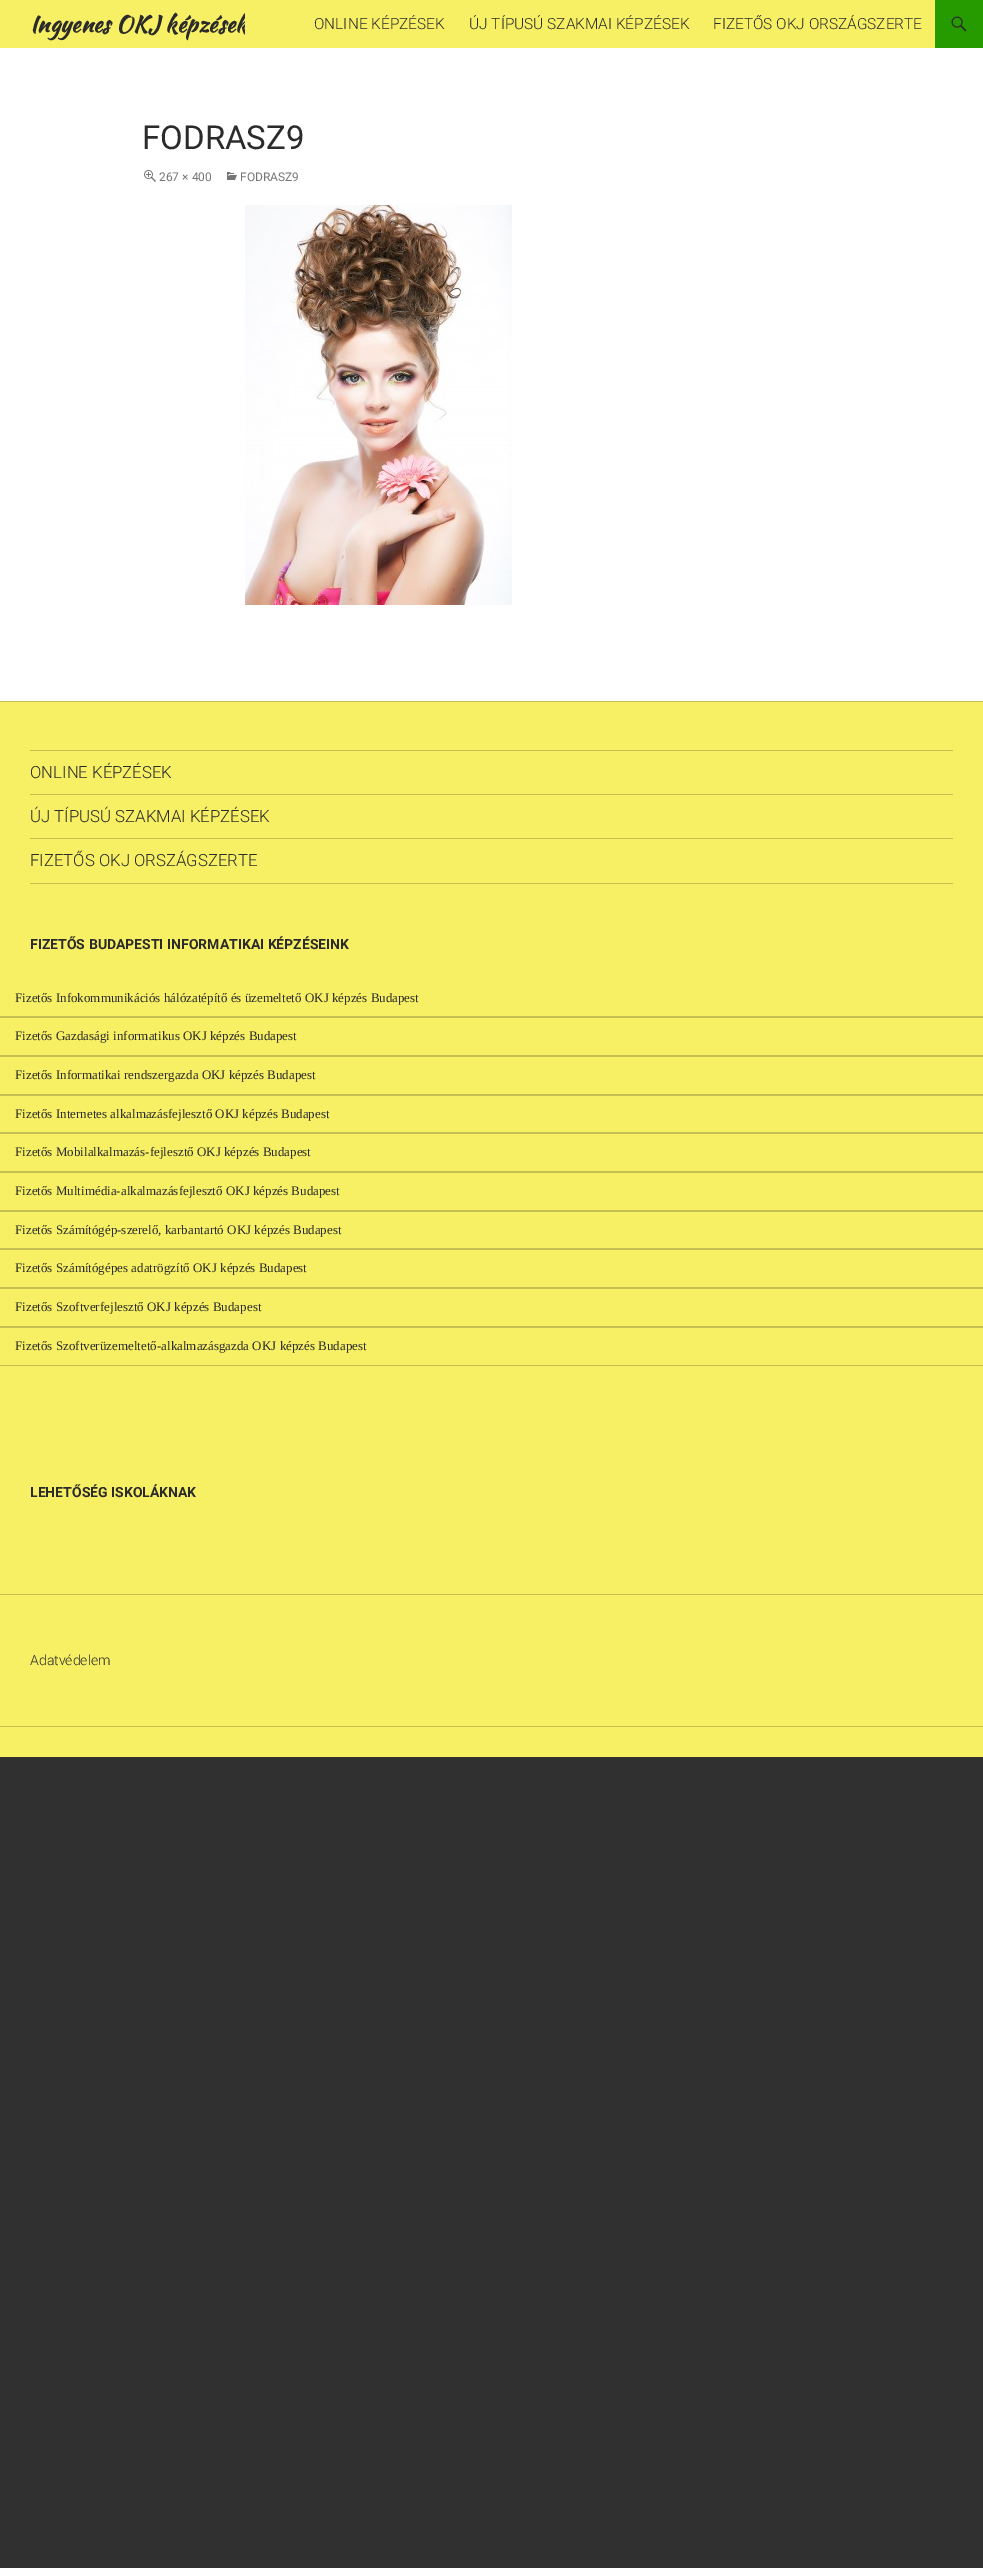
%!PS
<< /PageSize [983 2568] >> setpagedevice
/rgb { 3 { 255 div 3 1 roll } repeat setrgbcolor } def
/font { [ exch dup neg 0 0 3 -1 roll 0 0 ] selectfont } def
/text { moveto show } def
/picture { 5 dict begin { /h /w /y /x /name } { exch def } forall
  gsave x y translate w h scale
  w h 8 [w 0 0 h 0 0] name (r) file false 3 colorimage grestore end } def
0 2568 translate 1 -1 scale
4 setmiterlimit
48 48 48 rgb
0 0 983 2568 rectfill
255 255 255 rgb
0 48 983 653 rectfill
247 240 101 rgb
0 0 935 48 rectfill
38 155 0 rgb
935 0 48 48 rectfill
(img_01.rgb) 951 16 16 16 picture
(img_02.rgb) 144 170 12 12 picture
(img_03.rgb) 227 172 10 8 picture
(img_04.rgb) 245 205 267 400 picture
247 240 101 rgb
0 702 983 892 rectfill
198 192 81 rgb
0 701 983 1 rectfill
0 1594 983 1 rectfill
30 883 923 1 rectfill
30 750 923 1 rectfill
30 794 923 1 rectfill
30 838 923 1 rectfill
196 191 80 rgb
0 1016 983 1 rectfill
198 192 81 rgb
0 1017 983 1 rectfill
196 191 80 rgb
0 1055 983 1 rectfill
198 192 81 rgb
0 1056 983 1 rectfill
196 191 80 rgb
0 1094 983 1 rectfill
198 192 81 rgb
0 1095 983 1 rectfill
196 191 80 rgb
0 1132 983 1 rectfill
198 192 81 rgb
0 1133 983 1 rectfill
196 191 80 rgb
0 1171 983 1 rectfill
198 192 81 rgb
0 1172 983 1 rectfill
196 191 80 rgb
0 1210 983 1 rectfill
198 192 81 rgb
0 1211 983 1 rectfill
196 191 80 rgb
0 1248 983 1 rectfill
198 192 81 rgb
0 1249 983 1 rectfill
196 191 80 rgb
0 1287 983 1 rectfill
198 192 81 rgb
0 1288 983 1 rectfill
196 191 80 rgb
0 1326 983 1 rectfill
198 192 81 rgb
0 1327 983 1 rectfill
196 191 80 rgb
0 1365 983 1 rectfill
247 240 101 rgb
0 1595 983 162 rectfill
198 192 81 rgb
0 1726 983 1 rectfill
gsave
30 0 215 48 rectclip
/KaushanScript-Bold 22.5 font
43 43 43 rgb
30 32 moveto 0.25 0 (Ingyenes OKJ képzések) ashow
grestore
/Roboto-Light 15.4 font
43 43 43 rgb
(ONLINE KÉPZÉSEK) 314 29 text
(ÚJ TÍPUSÚ SZAKMAI KÉPZÉSEK) 469 29 text
(FIZETŐS OKJ ORSZÁGSZERTE) 713 29 text
/Roboto-Regular 33 font
(FODRASZ9) 142 149 text
/Roboto-Regular 12 font
118 118 118 rgb
(267 × 400) 159 181 text
(FODRASZ9) 240 181 text
/Roboto-Light 16.75 font
43 43 43 rgb
(ONLINE KÉPZÉSEK) 30 778 text
(ÚJ TÍPUSÚ SZAKMAI KÉPZÉSEK) 30 822 text
(FIZETŐS OKJ ORSZÁGSZERTE) 30 866 text
/Roboto-Bold 14 font
(FIZETŐS BUDAPESTI INFORMATIKAI KÉPZÉSEINK) 30 949 text
/LiberationSerif-Regular 13 font
(Fizetős Infokommunikációs hálózatépítő és üzemeltető OKJ képzés Budapest) 15 1002 text
(Fizetős Gazdasági informatikus OKJ képzés Budapest) 15 1040 text
(Fizetős Informatikai rendszergazda OKJ képzés Budapest) 15 1079 text
(Fizetős Internetes alkalmazásfejlesztő OKJ képzés Budapest) 15 1118 text
(Fizetős Mobilalkalmazás-fejlesztő OKJ képzés Budapest) 15 1156 text
(Fizetős Multimédia-alkalmazásfejlesztő OKJ képzés Budapest) 15 1195 text
(Fizetős Számítógép-szerelő, karbantartó OKJ képzés Budapest) 15 1234 text
(Fizetős Számítógépes adatrögzítő OKJ képzés Budapest) 15 1272 text
(Fizetős Szoftverfejlesztő OKJ képzés Budapest) 15 1311 text
(Fizetős Szoftverüzemeltető-alkalmazásgazda OKJ képzés Budapest) 15 1350 text
/Roboto-Bold 14 font
(LEHETŐSÉG ISKOLÁKNAK) 30 1497 text
/Roboto-Light 14 font
(Adatvédelem) 30 1665 text
showpage
